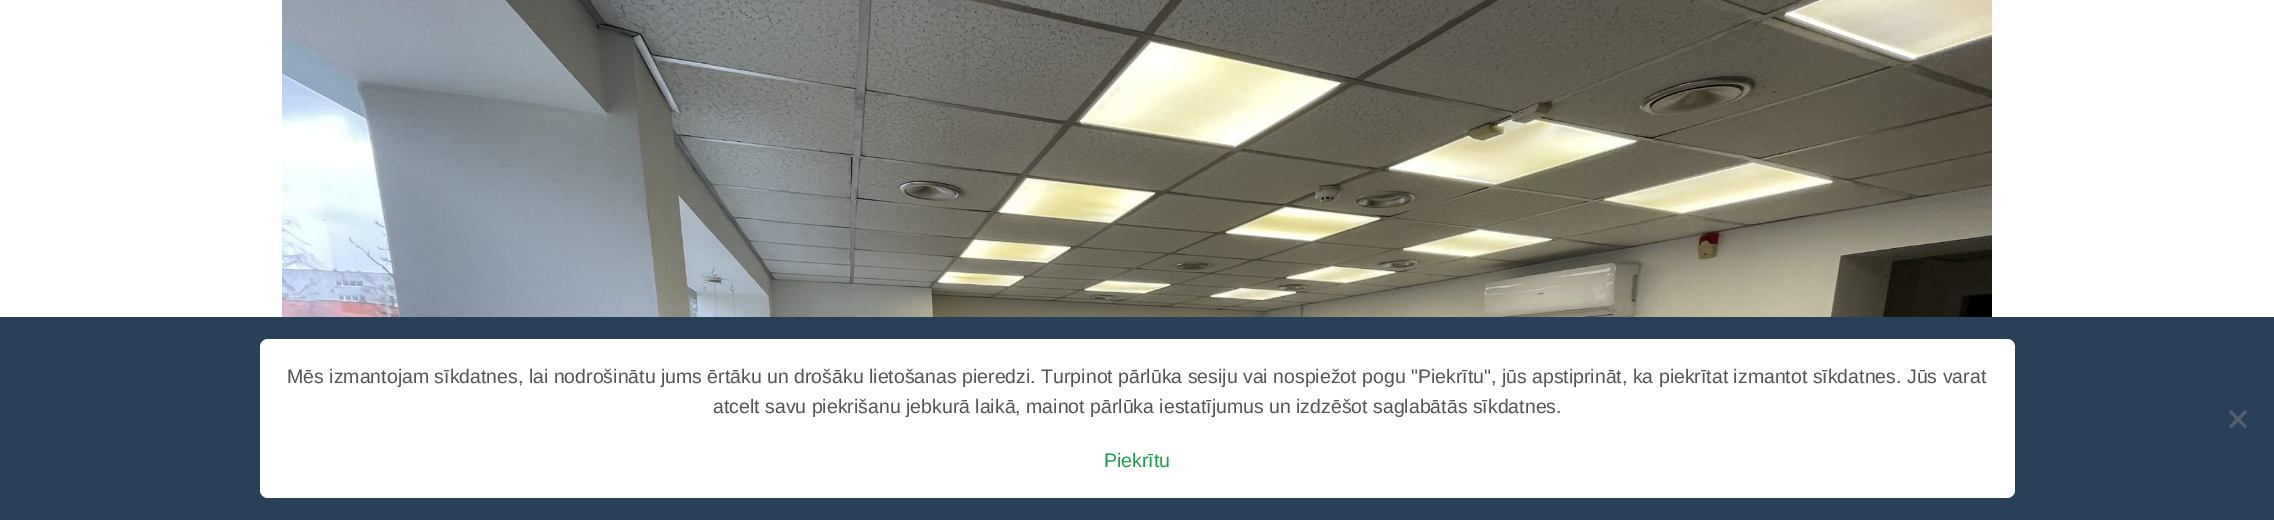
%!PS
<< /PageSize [2274 520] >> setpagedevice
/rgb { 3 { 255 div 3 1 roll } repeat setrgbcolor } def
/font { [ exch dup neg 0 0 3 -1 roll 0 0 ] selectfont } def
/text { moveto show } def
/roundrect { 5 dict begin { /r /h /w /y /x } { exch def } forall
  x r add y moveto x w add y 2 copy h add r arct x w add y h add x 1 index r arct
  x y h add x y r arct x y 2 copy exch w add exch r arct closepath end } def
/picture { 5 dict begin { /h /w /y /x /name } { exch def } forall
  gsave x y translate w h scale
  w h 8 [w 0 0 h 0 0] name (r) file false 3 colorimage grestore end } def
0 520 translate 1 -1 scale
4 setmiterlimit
255 255 255 rgb
0 0 2274 520 rectfill
(img_01.rgb) 282 0 1710 317 picture
41 64 89 rgb
0 317 2274 203 rectfill
255 255 255 rgb
260 339 1755 159 8 roundrect fill
85 96 109 rgb
2245 410 moveto 2 2.5 rlineto -16 16 rlineto -2 -2.5 rlineto closepath fill
2229 412.5 moveto 2 -2.5 rlineto 16 16 rlineto -2 2.5 rlineto closepath fill
/LiberationSans-Regular 19.5 font
85 85 85 rgb
(Mēs izmantojam sīkdatnes, lai nodrošinātu jums ērtāku un drošāku lietošanas pieredzi. Turpinot pārlūka sesiju vai nospiežot pogu "Piekrītu", jūs apstiprināt, ka piekrītat izmantot sīkdatnes. Jūs varat) 287 383 text
(atcelt savu piekrišanu jebkurā laikā, mainot pārlūka iestatījumus un izdzēšot saglabātās sīkdatnes.) 713 413 text
27 159 77 rgb
(Piekrītu) 1104 467 text
showpage
